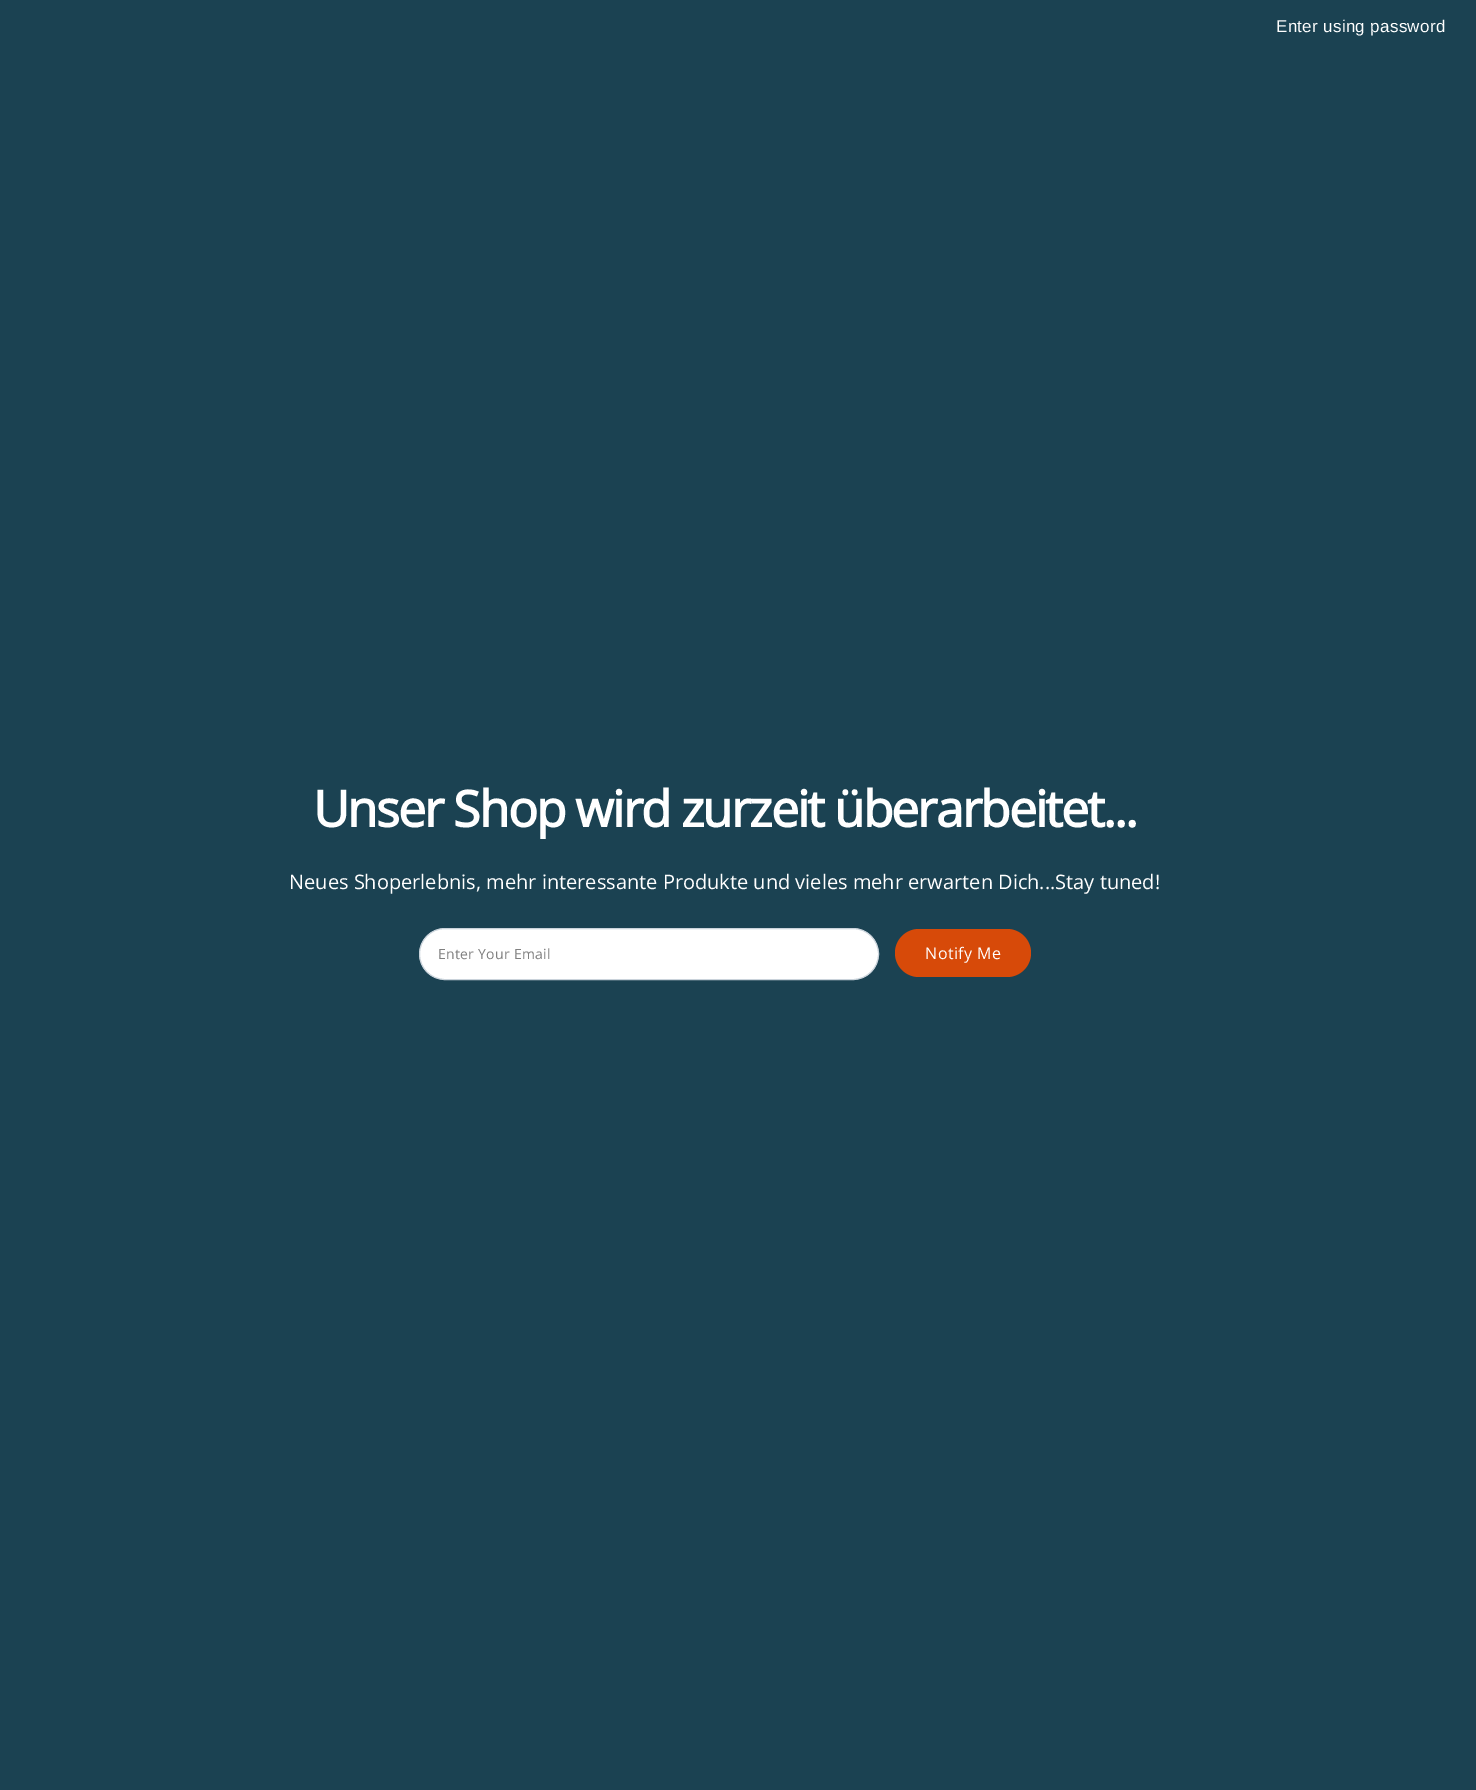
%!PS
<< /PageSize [1476 1790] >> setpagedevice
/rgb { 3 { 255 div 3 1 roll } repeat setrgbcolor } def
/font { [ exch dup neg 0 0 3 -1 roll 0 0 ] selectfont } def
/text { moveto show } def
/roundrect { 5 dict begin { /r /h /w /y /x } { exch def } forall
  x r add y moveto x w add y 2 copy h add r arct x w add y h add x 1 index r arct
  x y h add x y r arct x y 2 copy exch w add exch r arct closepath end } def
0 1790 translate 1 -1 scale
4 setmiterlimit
27 66 82 rgb
0 0 1476 1790 rectfill
255 255 255 rgb
419.5 928.5 459 51 25.5 roundrect gsave fill grestore
202 211 219 rgb
stroke
215 74 9 rgb
895 929 136 48 24 roundrect fill
/LiberationSans-Regular 17 font
255 255 255 rgb
1276 32 moveto 0.3 0 (Enter using password) ashow
/OpenSans-Bold 50 font
313 827 moveto -2 0 (Unser Shop wird zurzeit überarbeitet...) ashow
/OpenSans-Regular 20 font
(Neues Shoperlebnis, mehr interessante Produkte und vieles mehr erwarten Dich...Stay tuned!) 289 889 text
/OpenSans-Regular 14 font
128 128 128 rgb
438 959 moveto 0.3 0 (Enter Your Email) ashow
/OpenSans-Regular 16 font
255 255 255 rgb
925 959 moveto 0.5 0 (Notify Me) ashow
showpage
